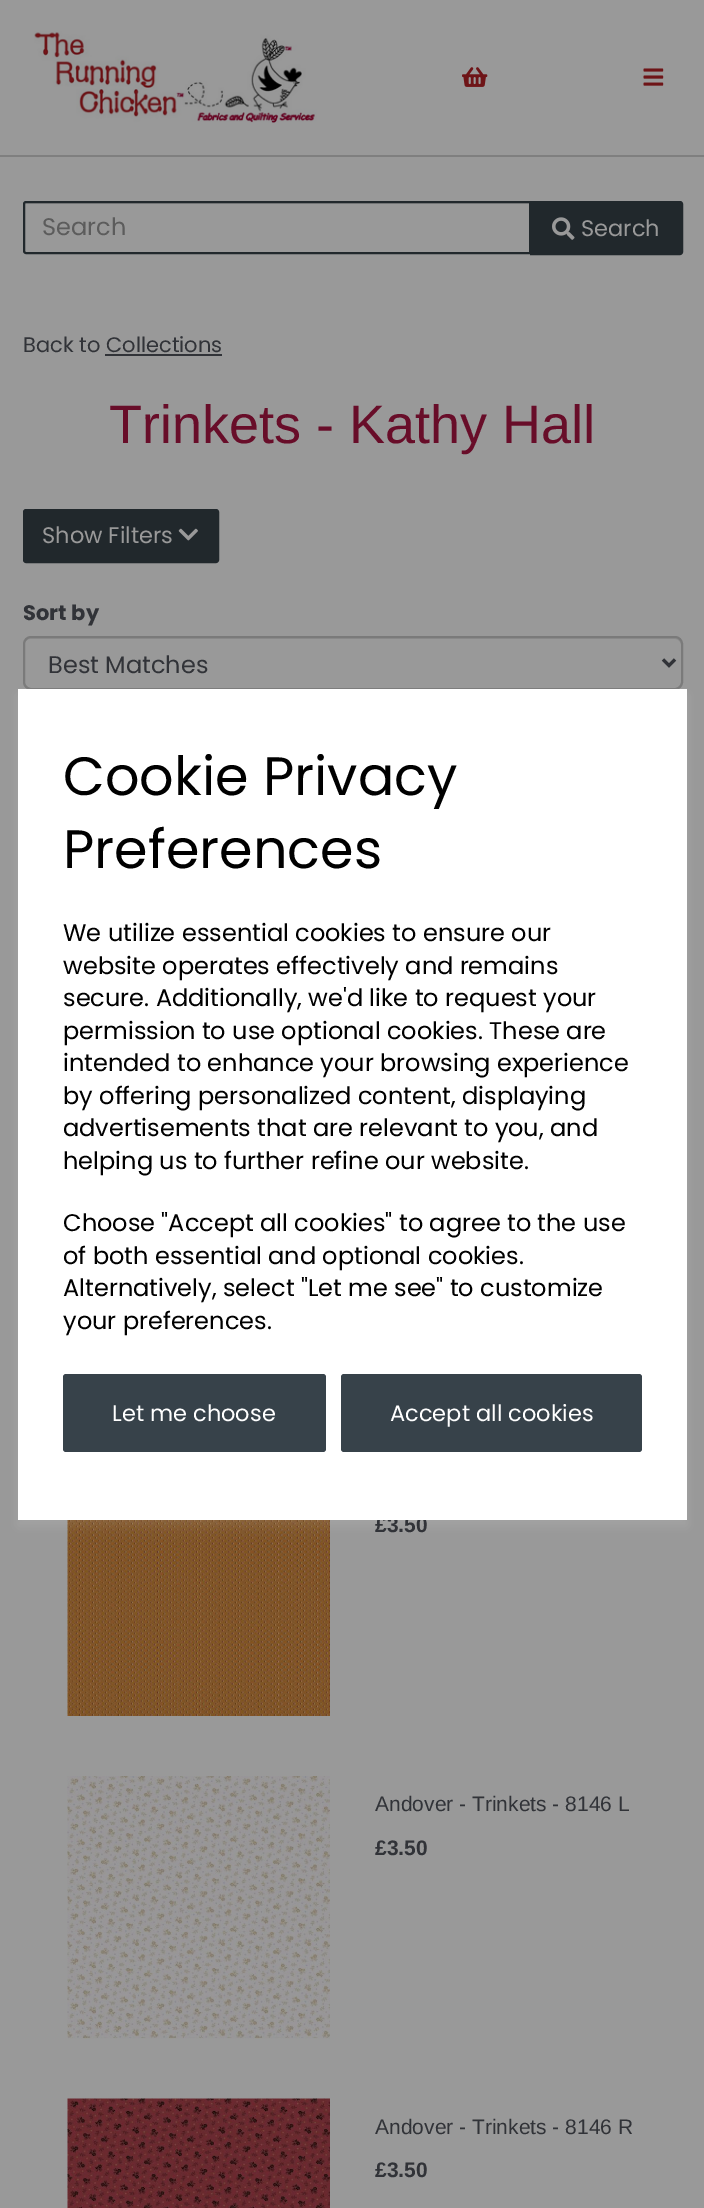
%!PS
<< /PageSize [704 2208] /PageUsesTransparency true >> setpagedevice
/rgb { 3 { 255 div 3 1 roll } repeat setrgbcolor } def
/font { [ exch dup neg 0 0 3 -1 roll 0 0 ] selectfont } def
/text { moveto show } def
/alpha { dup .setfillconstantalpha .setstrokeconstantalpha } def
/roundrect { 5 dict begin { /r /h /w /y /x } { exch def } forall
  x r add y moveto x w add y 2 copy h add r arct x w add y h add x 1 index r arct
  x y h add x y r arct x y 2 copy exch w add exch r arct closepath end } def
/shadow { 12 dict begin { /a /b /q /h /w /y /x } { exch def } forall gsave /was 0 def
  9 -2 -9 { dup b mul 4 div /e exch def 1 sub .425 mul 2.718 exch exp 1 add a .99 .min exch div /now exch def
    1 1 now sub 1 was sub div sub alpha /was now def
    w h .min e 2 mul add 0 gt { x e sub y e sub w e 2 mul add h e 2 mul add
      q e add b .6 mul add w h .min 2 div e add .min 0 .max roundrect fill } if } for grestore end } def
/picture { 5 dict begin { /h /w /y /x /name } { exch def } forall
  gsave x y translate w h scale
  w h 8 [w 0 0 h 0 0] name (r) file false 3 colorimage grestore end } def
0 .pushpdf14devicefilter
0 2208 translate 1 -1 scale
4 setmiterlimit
153 153 153 rgb
0 0 704 2208 rectfill
127 127 127 rgb
0 155 704 2 rectfill
(img_01.rgb) 34 31 283 92 picture
(img_02.rgb) 462 67 26 20 picture
(img_03.rgb) 643 68 21 18 picture
142 142 142 rgb
26 204 moveto 504 0 rlineto 0 -1 rlineto -504 0 rlineto -2 1 rlineto 0 2 rlineto 0 -1 1 -2 2 -2 rcurveto closepath fill
33 40 44 rgb
2 setlinewidth
26 202 moveto 504 0 rlineto 0 51 rlineto -504 0 rlineto -1 0 -2 -1 -2 -2 rcurveto 0 -47 rlineto 0 -1 1 -2 2 -2 rcurveto closepath stroke
531 202 moveto 149 0 rlineto 1 0 2 1 2 2 rcurveto 0 48 rlineto 0 1 -1 2 -2 2 rcurveto -149 0 rlineto closepath gsave fill grestore
stroke
(img_04.rgb) 552 217 23 23 picture
49 51 56 rgb
105 354 117 2 rectfill
33 40 44 rgb
24 510 194 52 2 roundrect gsave fill grestore
stroke
(img_05.rgb) 178 528 20 13 picture
142 142 142 rgb
30 639 moveto 645 0 rlineto 3 0 6 3 6 6 rcurveto 0 -1 rlineto 0 -3 -3 -6 -6 -6 rcurveto -645 0 rlineto -3 0 -6 3 -6 6 rcurveto 0 1 rlineto 0 -3 3 -6 6 -6 rcurveto closepath fill
122 122 122 rgb
24 637 658 52 7 roundrect stroke
49 51 56 rgb
3 setlinewidth
663 659.5 moveto 6 6 rlineto 6 -6 rlineto stroke
(img_06.rgb) 67 1520 263 196 picture
(img_07.rgb) 67 1776 263 263 picture
(img_08.rgb) 67 2098 263 110 picture
255 255 255 rgb
18 695 669 831 0 6 0.1 shadow
/Poppins-Regular 24 font
92 92 92 rgb
(Search) 42 235 text
/Poppins-Regular 22.5 font
153 153 153 rgb
(Search) 581 236 text
/Poppins-Regular 21 font
49 51 56 rgb
(Back to Collections) 23 352 text
/LiberationSans-Regular 54 font
104 13 41 rgb
(Trinkets - Kathy Hall) 109 443 text
/Poppins-Regular 22.5 font
153 153 153 rgb
(Show Filters) 42 543 text
/Poppins-Bold 21 font
49 51 56 rgb
(Sort by) 23 620 text
/Poppins-Regular 24 font
(Best Matches) 48 673 text
/LiberationSans-Bold 21 font
(£3.50) 375 1532 text
/LiberationSans-Regular 21 font
(Andover - Trinkets - 8146 L) 375 1811 text
/LiberationSans-Bold 21 font
(£3.50) 375 1855 text
/LiberationSans-Regular 21 font
(Andover - Trinkets - 8146 R) 375 2134 text
/LiberationSans-Bold 21 font
(£3.50) 375 2177 text
255 255 255 rgb
18 689 669 831 rectfill
/Poppins-Regular 54 font
0 0 0 rgb
(Cookie Privacy) 63 795 text
(Preferences) 63 868 text
/Poppins-Regular 24 font
(We utilize essential cookies to ensure our) 63 941 text
(website operates effectively and remains) 63 974 text
(secure. Additionally, we'd like to request your) 63 1006 text
(permission to use optional cookies. These are) 63 1039 text
(intended to enhance your browsing experience) 63 1071 text
(by offering personalized content, displaying) 63 1104 text
(advertisements that are relevant to you, and) 63 1136 text
(helping us to further refine our website.) 63 1169 text
(Choose "Accept all cookies" to agree to the use) 63 1231 text
(of both essential and optional cookies.) 63 1264 text
(Alternatively, select "Let me see" to customize) 63 1296 text
(your preferences.) 63 1329 text
55 66 74 rgb
63 1374 263 78 3 roundrect fill
/Poppins-Regular 22.5 font
255 255 255 rgb
(Let me choose) 112 1421 text
55 66 74 rgb
341 1374 301 78 3 roundrect fill
255 255 255 rgb
(Accept all cookies) 390 1421 text
.poppdf14devicefilter showpage
